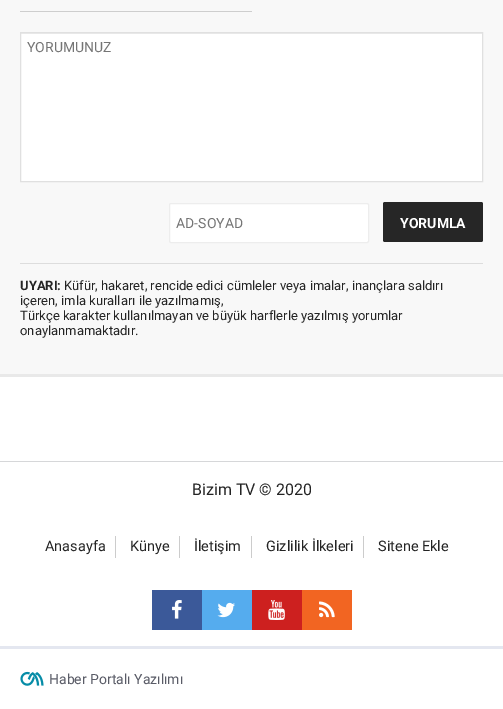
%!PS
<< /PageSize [503 709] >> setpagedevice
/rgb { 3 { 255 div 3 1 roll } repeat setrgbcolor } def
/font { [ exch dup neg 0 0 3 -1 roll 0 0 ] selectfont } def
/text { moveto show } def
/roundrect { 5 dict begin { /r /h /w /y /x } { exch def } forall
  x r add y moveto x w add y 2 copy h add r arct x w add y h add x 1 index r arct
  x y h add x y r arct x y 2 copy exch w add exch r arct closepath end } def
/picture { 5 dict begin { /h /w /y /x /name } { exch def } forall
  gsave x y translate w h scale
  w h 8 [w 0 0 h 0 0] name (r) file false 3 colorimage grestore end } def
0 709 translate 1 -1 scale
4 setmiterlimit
255 255 255 rgb
0 0 503 709 rectfill
248 248 248 rgb
0 0 503 374 rectfill
233 233 233 rgb
0 374 503 3 rectfill
206 206 206 rgb
20 11 232 1 rectfill
255 255 255 rgb
21 34 461 147 rectfill
236 236 236 rgb
21 33 461 1 rectfill
224 224 224 rgb
20.5 32.5 462 149 rectstroke
255 255 255 rgb
169.5 203.5 199 39 1.5 roundrect gsave fill grestore
237 237 237 rgb
stroke
38 38 38 rgb
383 202 100 40 2 roundrect fill
221 221 221 rgb
20 263 463 1 rectfill
214 215 217 rgb
0 461 503 1 rectfill
228 231 240 rgb
0 646 503 3 rectfill
204 204 204 rgb
115 536 1 22 rectfill
179 536 1 22 rectfill
251 536 1 22 rectfill
363 536 1 22 rectfill
59 89 153 rgb
152 590 50 40 rectfill
(img_01.rgb) 172 600 10 19 picture
85 172 238 rgb
202 590 50 40 rectfill
(img_02.rgb) 217 602 18 16 picture
205 32 31 rgb
252 590 50 40 rectfill
(img_03.rgb) 268 600 17 20 picture
242 101 34 rgb
302 590 50 40 rectfill
(img_04.rgb) 319 601 16 17 picture
(img_05.rgb) 20 671 24 15 picture
/Roboto-Regular 14 font
117 117 117 rgb
(YORUMUNUZ) 27 52 text
(AD-SOYAD) 176 228 text
/Roboto-Bold 14 font
255 255 255 rgb
(YORUMLA) 400 228 text
/Roboto-Bold 13 font
36 36 36 rgb
(UYARI:) 20 290 text
/Roboto-Regular 13 font
(Küfür, hakaret, rencide edici cümleler veya imalar, inançlara saldırı) 64 290 text
(içeren, imla kuralları ile yazılmamış,) 20 305 text
(Türkçe karakter kullanılmayan ve büyük harflerle yazılmış yorumlar) 20 320 text
(onaylanmamaktadır.) 20 335 text
/Roboto-Regular 16 font
(Bizim TV © 2020) 192 495 text
/Roboto-Regular 14.5 font
(Anasayfa) 45 551 text
(Künye) 130 551 text
(İletişim) 194 551 text
(Gizlilik İlkeleri) 266 551 text
(Sitene Ekle) 378 551 text
/Roboto-Regular 14 font
90 92 103 rgb
(Haber Portalı Yazılımı) 49 684 text
showpage
